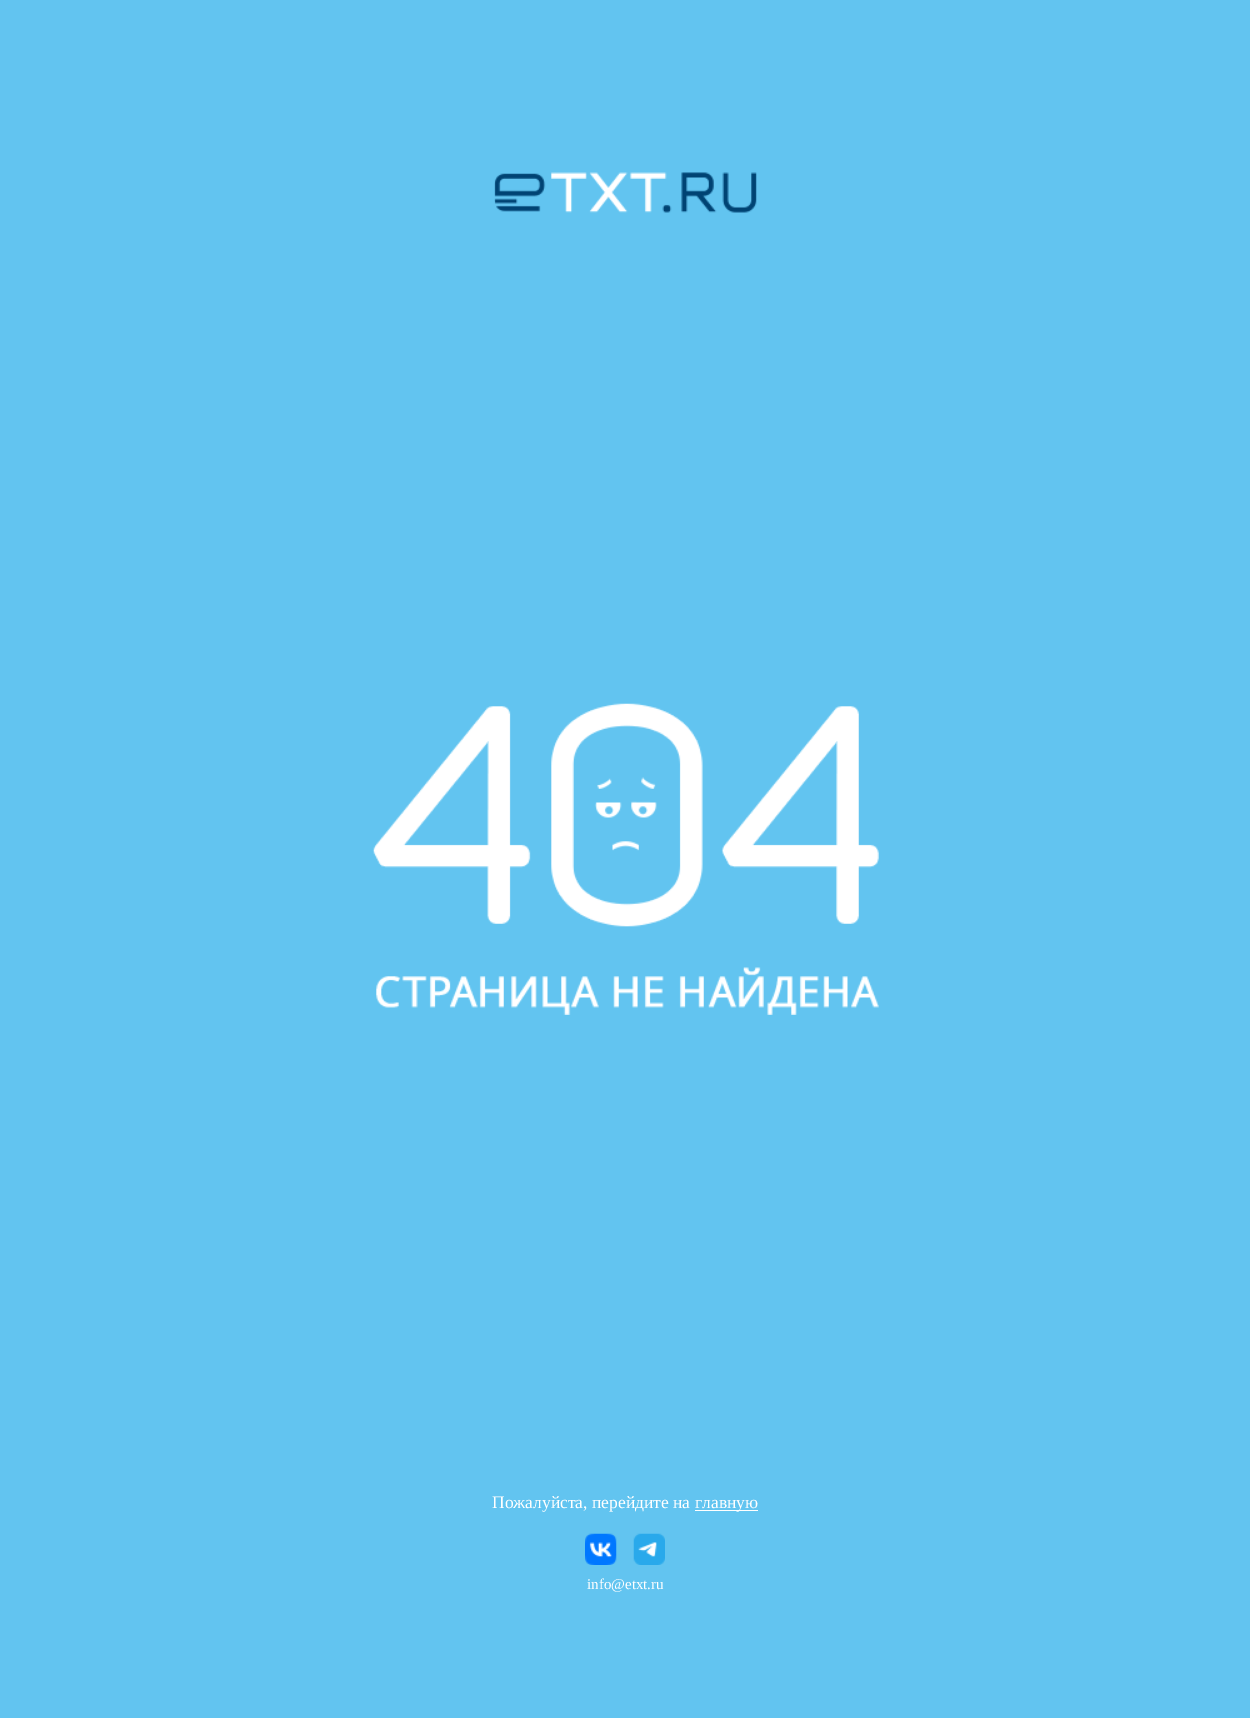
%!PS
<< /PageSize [1250 1718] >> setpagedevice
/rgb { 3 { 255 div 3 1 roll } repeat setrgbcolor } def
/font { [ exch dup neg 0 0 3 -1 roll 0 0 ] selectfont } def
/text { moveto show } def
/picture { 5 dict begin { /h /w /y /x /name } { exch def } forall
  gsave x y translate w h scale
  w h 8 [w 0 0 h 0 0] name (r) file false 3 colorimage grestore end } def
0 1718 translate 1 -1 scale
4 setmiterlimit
98 196 240 rgb
0 0 1250 1718 rectfill
(img_01.rgb) 372 703 507 312 picture
(img_02.rgb) 494 172 263 41 picture
255 255 255 rgb
695 1510 63 1 rectfill
(img_03.rgb) 585 1533 32 32 picture
(img_04.rgb) 633 1533 32 32 picture
/LiberationSerif-Regular 17.5 font
(Пожалуйста, перейдите на) 492 1508 text
(главную) 695 1508 text
/LiberationSerif-Regular 15 font
(info@etxt.ru) 587 1589 text
showpage
